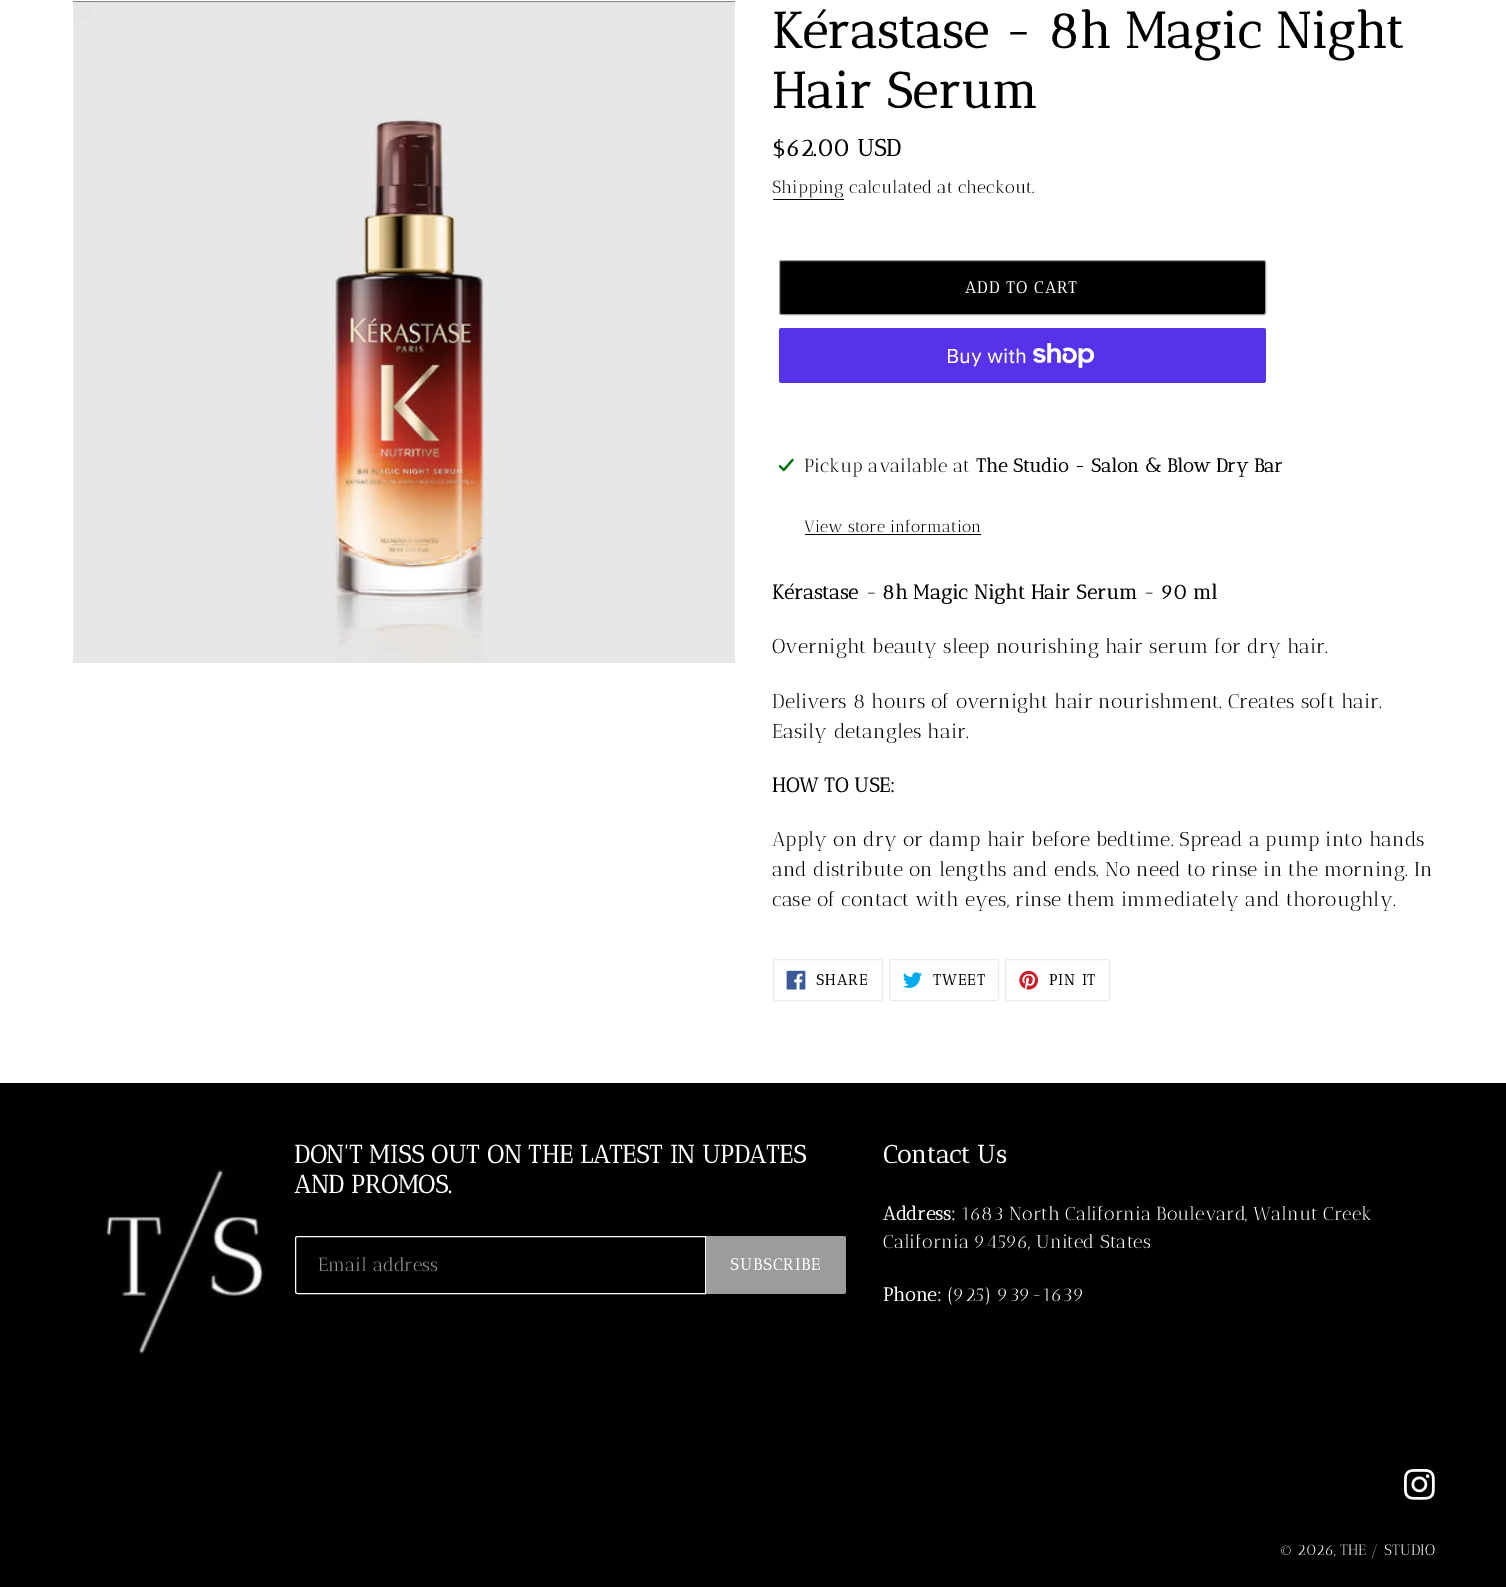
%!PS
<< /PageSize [1506 1587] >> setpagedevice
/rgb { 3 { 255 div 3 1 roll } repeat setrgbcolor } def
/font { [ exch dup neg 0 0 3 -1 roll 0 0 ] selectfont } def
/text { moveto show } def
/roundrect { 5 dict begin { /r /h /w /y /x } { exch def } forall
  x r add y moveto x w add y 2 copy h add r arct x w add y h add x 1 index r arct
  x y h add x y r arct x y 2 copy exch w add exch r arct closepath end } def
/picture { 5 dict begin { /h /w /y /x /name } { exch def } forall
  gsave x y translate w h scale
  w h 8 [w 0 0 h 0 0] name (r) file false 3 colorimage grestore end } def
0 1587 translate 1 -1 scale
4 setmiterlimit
255 255 255 rgb
0 0 1506 1587 rectfill
(img_01.rgb) 73 1 662 662 picture
0 0 0 rgb
773 199 71 1 rectfill
779.5 260.5 486 54 2 roundrect gsave fill grestore
156 156 156 rgb
stroke
84 51 235 rgb
779 328 487 55 2.5 roundrect fill
(img_02.rgb) 1033 343 62 25 picture
(img_03.rgb) 779 458 15 14 picture
0 0 0 rgb
805 534 176 1 rectfill
235 235 235 rgb
773.5 959.5 109 41 2 roundrect stroke
(img_04.rgb) 786 970 20 20 picture
889.5 959.5 109 41 2 roundrect stroke
(img_05.rgb) 903 972 19 16 picture
1005.5 959.5 104 41 2 roundrect stroke
(img_06.rgb) 1019 970 20 20 picture
0 0 0 rgb
0 1083 1506 504 rectfill
(img_07.rgb) 103 1169 163 185 picture
255 255 255 rgb
297.5 1236.5 moveto 408 0 rlineto 0 57 rlineto -408 0 rlineto -1 0 -2 -1 -2 -2 rcurveto 0 -53 rlineto 0 -1 1 -2 2 -2 rcurveto closepath stroke
156 156 156 rgb
706 1236 moveto 137.5 0 rlineto 1.5 0 2.5 1 2.5 2.5 rcurveto 0 53 rlineto 0 1.5 -1 2.5 -2.5 2.5 rcurveto -137.5 0 rlineto closepath fill
(img_08.rgb) 1404 1469 31 31 picture
/AnticDidone-Bold 50 font
0 0 0 rgb
(Kérastase - 8h Magic Night) 772 48 text
(Hair Serum) 772 108 text
/AnticDidone-Bold 23.5 font
($62.00 USD) 772 156 text
/AnticDidone-Regular 17.5 font
(Shipping calculated at checkout.) 772 193 text
/AnticDidone-Bold 16.25 font
255 255 255 rgb
965 293 moveto 1.25 0 (ADD TO CART) ashow
/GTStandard-Regular 20 font
(Buy with) 946 363 text
/AnticDidone-Regular 18.75 font
0 0 0 rgb
(Pickup available at) 804 472 text
/AnticDidone-Bold 18.75 font
(The Studio - Salon & Blow Dry Bar) 976 472 text
/AnticDidone-Regular 16.25 font
(View store information) 804 532 text
/AnticDidone-Bold 20 font
(Kérastase - 8h Magic Night Hair Serum - 90 ml) 772 599 text
/AnticDidone-Regular 20 font
(Overnight beauty sleep nourishing hair serum for dry hair.) 772 653 text
(Delivers 8 hours of overnight hair nourishment. Creates soft hair.) 772 708 text
(Easily detangles hair.) 772 738 text
/AnticDidone-Bold 20 font
(HOW TO USE:) 772 792 text
/AnticDidone-Regular 20 font
(Apply on dry or damp hair before bedtime. Spread a pump into hands) 772 846 text
(and distribute on lengths and ends. No need to rinse in the morning. In) 772 876 text
(case of contact with eyes, rinse them immediately and thoroughly.) 772 906 text
/AnticDidone-Bold 15 font
816 985 moveto 1.25 0 (SHARE) ashow
933 985 moveto 1.25 0 (TWEET) ashow
1049 985 moveto 1.25 0 (PIN IT) ashow
/AnticDidone-Bold 25 font
255 255 255 rgb
(DON'T MISS OUT ON THE LATEST IN UPDATES) 294 1163 text
(AND PROMOS.) 294 1193 text
/AnticDidone-Regular 18.75 font
153 153 153 rgb
(Email address) 318 1271 text
/AnticDidone-Bold 16.25 font
255 255 255 rgb
730 1270 moveto 1.25 0 (SUBSCRIBE) ashow
/AnticDidone-Bold 25 font
(Contact Us) 883 1163 text
/AnticDidone-Bold 18.75 font
(Address:) 883 1220 text
/AnticDidone-Regular 18.75 font
(1683 North California Boulevard, Walnut Creek) 961 1220 text
(California 94596, United States) 883 1248 text
/AnticDidone-Bold 18.75 font
(Phone:) 883 1301 text
/AnticDidone-Regular 18.75 font
(\(925\) 939-1639) 947 1301 text
/AnticDidone-Regular 15 font
(© 2026, THE / STUDIO) 1280 1555 text
showpage
